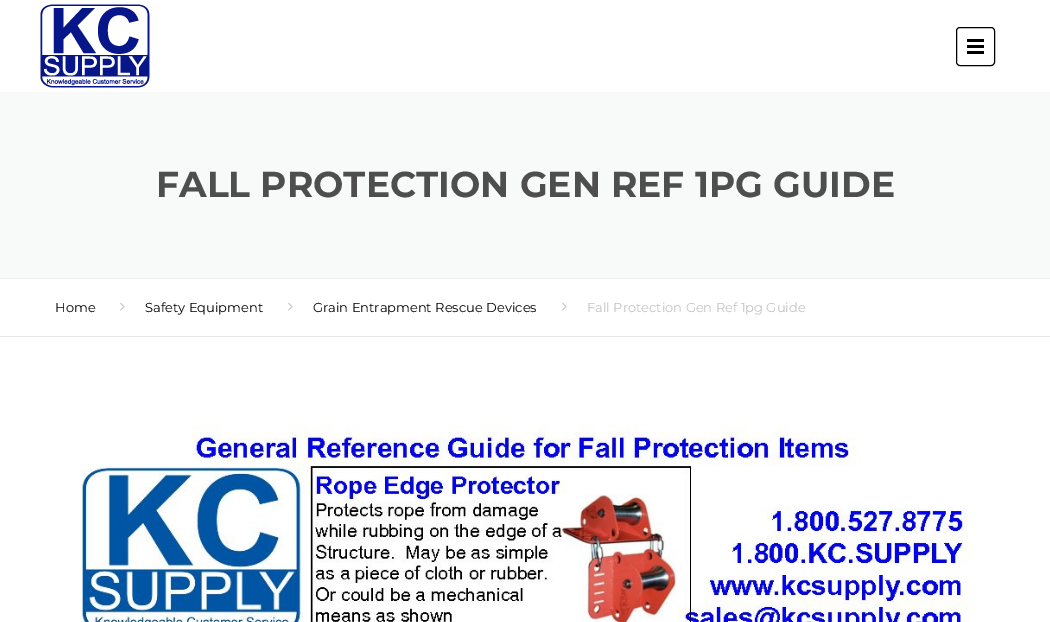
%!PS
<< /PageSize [1050 622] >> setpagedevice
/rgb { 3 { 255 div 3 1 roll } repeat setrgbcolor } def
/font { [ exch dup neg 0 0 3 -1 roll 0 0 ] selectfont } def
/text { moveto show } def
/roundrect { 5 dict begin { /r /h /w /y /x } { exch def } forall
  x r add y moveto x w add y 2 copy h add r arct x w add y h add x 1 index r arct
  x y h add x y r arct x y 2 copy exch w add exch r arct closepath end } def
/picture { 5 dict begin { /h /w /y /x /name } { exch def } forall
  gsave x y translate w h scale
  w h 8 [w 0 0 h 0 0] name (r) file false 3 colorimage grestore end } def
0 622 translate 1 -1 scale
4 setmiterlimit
255 255 255 rgb
0 0 1050 622 rectfill
(img_01.rgb) 40 4 110 84 picture
0 0 0 rgb
956.5 27.5 38 38 3.5 roundrect stroke
967 39 17 3 rectfill
967 45 17 3 rectfill
967 51 17 3 rectfill
248 249 249 rgb
0 92 1050 186 rectfill
238 238 238 rgb
0 278 1050 1 rectfill
231 231 231 rgb
0 336 1050 1 rectfill
(img_02.rgb) 120 302 5 9 picture
(img_02.rgb) 288 302 5 9 picture
(img_02.rgb) 562 302 5 9 picture
(img_03.rgb) 82 424 886 198 picture
/Montserrat-Bold 36 font
78 78 78 rgb
(FALL PROTECTION GEN REF 1PG GUIDE) 156 197 text
/Montserrat-Regular 13 font
0 0 0 rgb
(Home) 55 312 text
(Safety Equipment) 145 312 text
(Grain Entrapment Rescue Devices) 313 312 text
195 195 195 rgb
(Fall Protection Gen Ref 1pg Guide) 587 312 text
showpage
